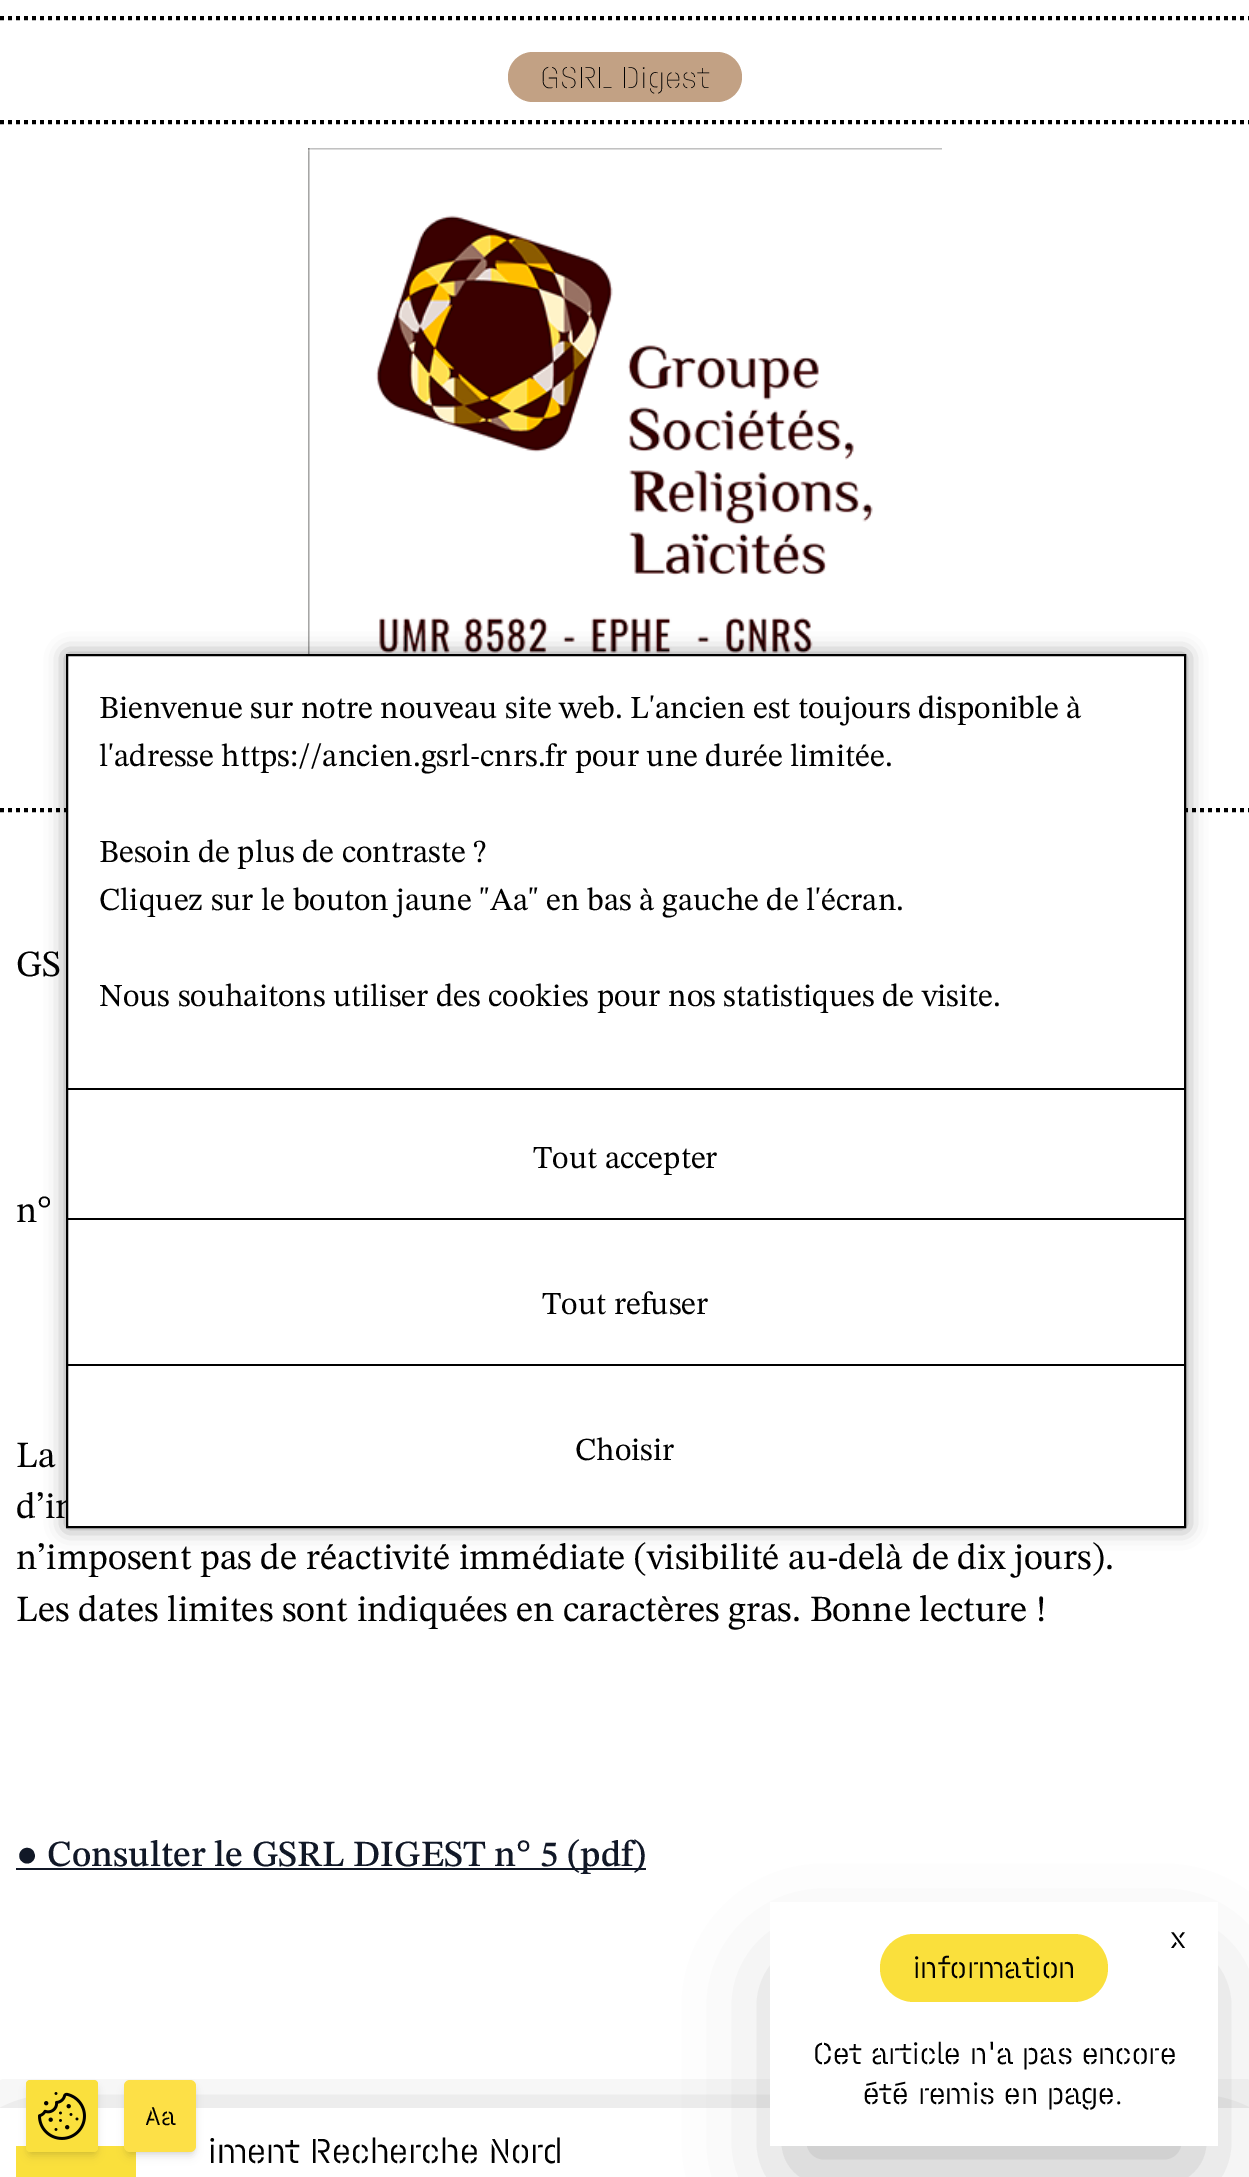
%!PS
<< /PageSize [1249 2177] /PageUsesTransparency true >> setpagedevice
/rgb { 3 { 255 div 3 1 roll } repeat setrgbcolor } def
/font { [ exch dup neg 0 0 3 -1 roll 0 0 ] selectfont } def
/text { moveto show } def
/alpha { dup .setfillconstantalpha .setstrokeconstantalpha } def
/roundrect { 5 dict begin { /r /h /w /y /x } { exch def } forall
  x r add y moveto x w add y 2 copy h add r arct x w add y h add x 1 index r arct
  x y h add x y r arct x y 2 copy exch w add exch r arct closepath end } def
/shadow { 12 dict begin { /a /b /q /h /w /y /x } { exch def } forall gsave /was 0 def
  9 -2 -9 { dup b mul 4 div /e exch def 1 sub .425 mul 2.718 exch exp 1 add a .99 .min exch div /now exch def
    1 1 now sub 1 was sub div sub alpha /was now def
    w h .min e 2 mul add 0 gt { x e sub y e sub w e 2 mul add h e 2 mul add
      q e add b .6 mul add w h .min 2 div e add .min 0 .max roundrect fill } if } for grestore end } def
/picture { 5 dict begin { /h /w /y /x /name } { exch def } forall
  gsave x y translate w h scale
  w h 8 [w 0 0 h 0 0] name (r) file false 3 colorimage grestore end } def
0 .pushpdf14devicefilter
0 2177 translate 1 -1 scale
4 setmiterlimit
255 255 255 rgb
0 0 1249 2177 rectfill
0 0 0 rgb
4 setlinewidth
[4 4] 0 setdash
0 18 moveto 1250 0 rlineto stroke
0 122 moveto 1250 0 rlineto stroke
194 161 132 rgb
508 52 234 50 25 roundrect fill
0 0 0 rgb
0 810 moveto 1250 0 rlineto stroke
(img_01.rgb) 308 148 634 506 picture
17 24 39 rgb
16 1868 630 2 rectfill
0 0 0 rgb
794 1976 400 196 0 50 0.25 shadow
gsave
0 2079 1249 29 rectclip
24 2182 1202 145 0 50 1 shadow
grestore
255 255 255 rgb
770 1902 448 244 rectfill
250 224 60 rgb
880 1934 228 68 34 roundrect fill
0 0 0 rgb
66 654 1120 874 0 10 0.4 shadow
250 224 60 rgb
16 2146 120 31 rectfill
0 0 0 rgb
30 2086 66 66 2 3 0.1 shadow
28 2088 68 68 3 4.5 0.1 shadow
250 224 61 rgb
26 2080 72 72 4 roundrect fill
(img_02.rgb) 38 2092 48 48 picture
0 0 0 rgb
128 2086 66 66 3 3 0.1 shadow
126 2088 68 68 4 4.5 0.1 shadow
253 224 71 rgb
124 2080 72 72 6 roundrect fill
/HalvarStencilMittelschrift-ExtraLight 32 font
0 0 0 rgb
(GSRL Digest) 540 88 text
/STIXTwoText-Regular 36.8 font
(GS) 16 976 text
(n°) 16 1222 text
(La) 16 1467 text
(d’in) 16 1518 text
(n’imposent pas de réactivité immédiate \(visibilité au-delà de dix jours\).) 16 1569 text
(Les dates limites sont indiquées en caractères gras. Bonne lecture !) 16 1621 text
/LiberationSerif-Regular 36.8 font
17 24 39 rgb
(●) 16 1866 text
/STIXTwoText-Medium 36.8 font
(Consulter le GSRL DIGEST n° 5 \(pdf\)) 47 1866 text
/HalvarStencilMittelschrift-Light 32 font
0 0 0 rgb
(x) 1170 1948 text
(information) 913 1978 text
(Cet article n'a pas encore) 813 2064 text
(été remis en page.) 863 2104 text
255 255 255 rgb
67 655 moveto 1118 0 rlineto 0 872 rlineto -1118 0 rlineto closepath gsave fill grestore
0 0 0 rgb
2 setlinewidth
[] 0 setdash
stroke
/STIXTwoText-Regular 32 font
(Bienvenue sur notre nouveau site web. L'ancien est toujours disponible à) 99 718 text
(l'adresse https://ancien.gsrl-cnrs.fr pour une durée limitée.) 99 766 text
(Besoin de plus de contraste ?) 99 862 text
(Cliquez sur le bouton jaune "Aa" en bas à gauche de l'écran.) 99 910 text
(Nous souhaitons utiliser des cookies pour nos statistiques de visite.) 99 1006 text
68 1088 1116 2 rectfill
68 1218 1116 2 rectfill
(Tout accepter) 533 1168 text
68 1364 1116 2 rectfill
(Tout refuser) 542 1314 text
(Choisir) 575 1460 text
/HalvarStencilMittelschrift-Light 27 font
(Aa) 145 2125 text
/HalvarStencilMittelschrift-Light 36.8 font
(iment Recherche Nord) 208 2163 text
.poppdf14devicefilter showpage
